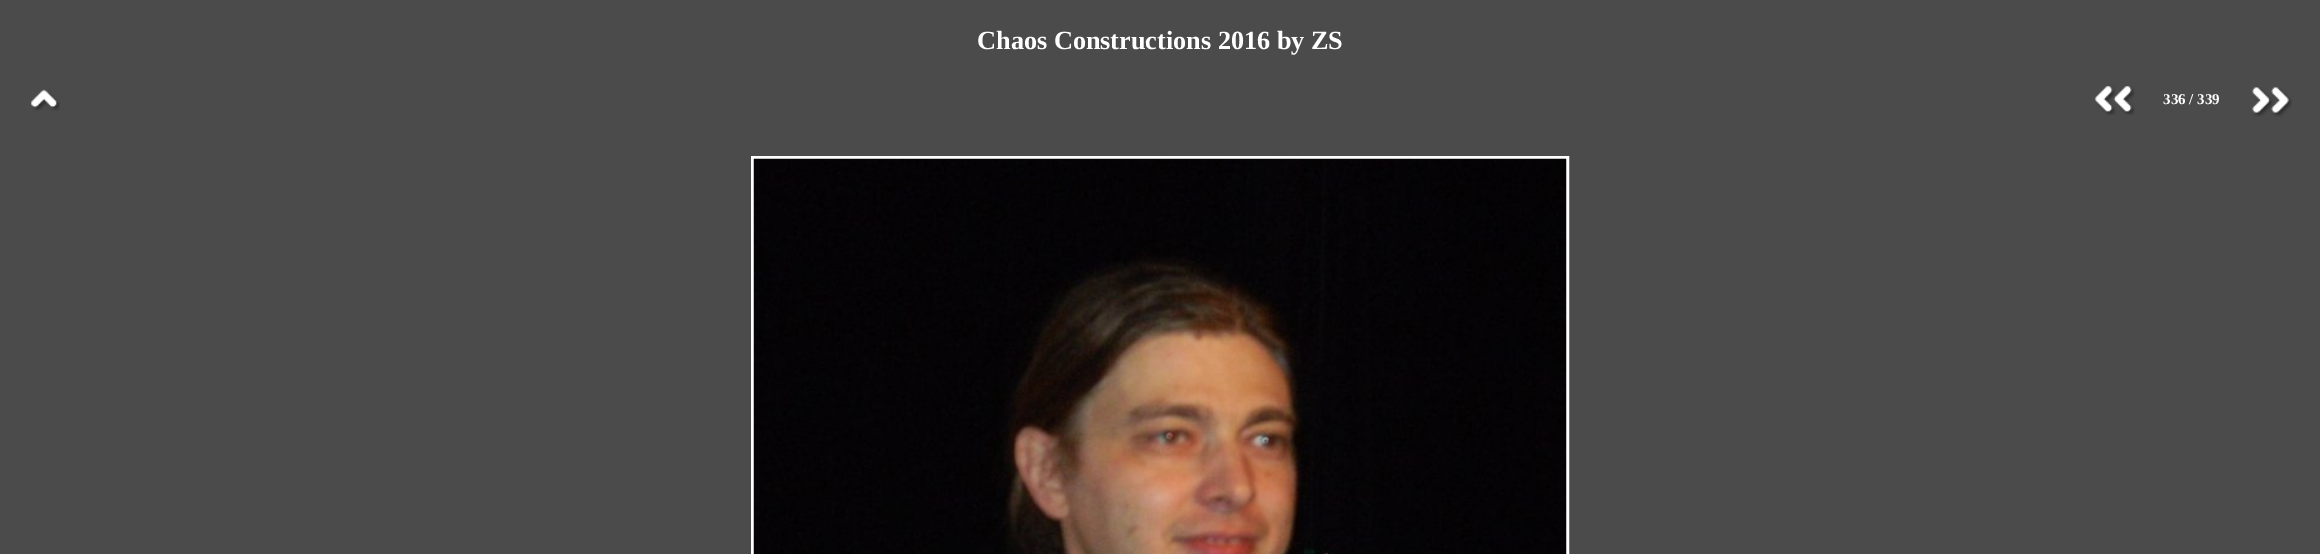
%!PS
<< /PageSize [2320 554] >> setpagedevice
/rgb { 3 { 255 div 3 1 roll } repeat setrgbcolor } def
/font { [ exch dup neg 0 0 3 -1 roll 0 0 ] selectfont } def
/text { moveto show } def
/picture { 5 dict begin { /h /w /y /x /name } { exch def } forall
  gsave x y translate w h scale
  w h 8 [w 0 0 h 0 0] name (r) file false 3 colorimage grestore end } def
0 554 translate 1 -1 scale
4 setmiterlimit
75 75 75 rgb
0 0 2320 554 rectfill
(img_01.rgb) 31 89 29 22 picture
(img_02.rgb) 2094 86 41 29 picture
(img_03.rgb) 2252 87 40 30 picture
255 255 255 rgb
3 setlinewidth
752.5 157.5 815 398 rectstroke
(img_04.rgb) 753 158 814 396 picture
/LiberationSerif-Bold 26.25 font
(Chaos Constructions 2016 by ZS) 977 49 text
/LiberationSerif-Bold 15 font
(336 / 339) 2163 104 text
showpage
